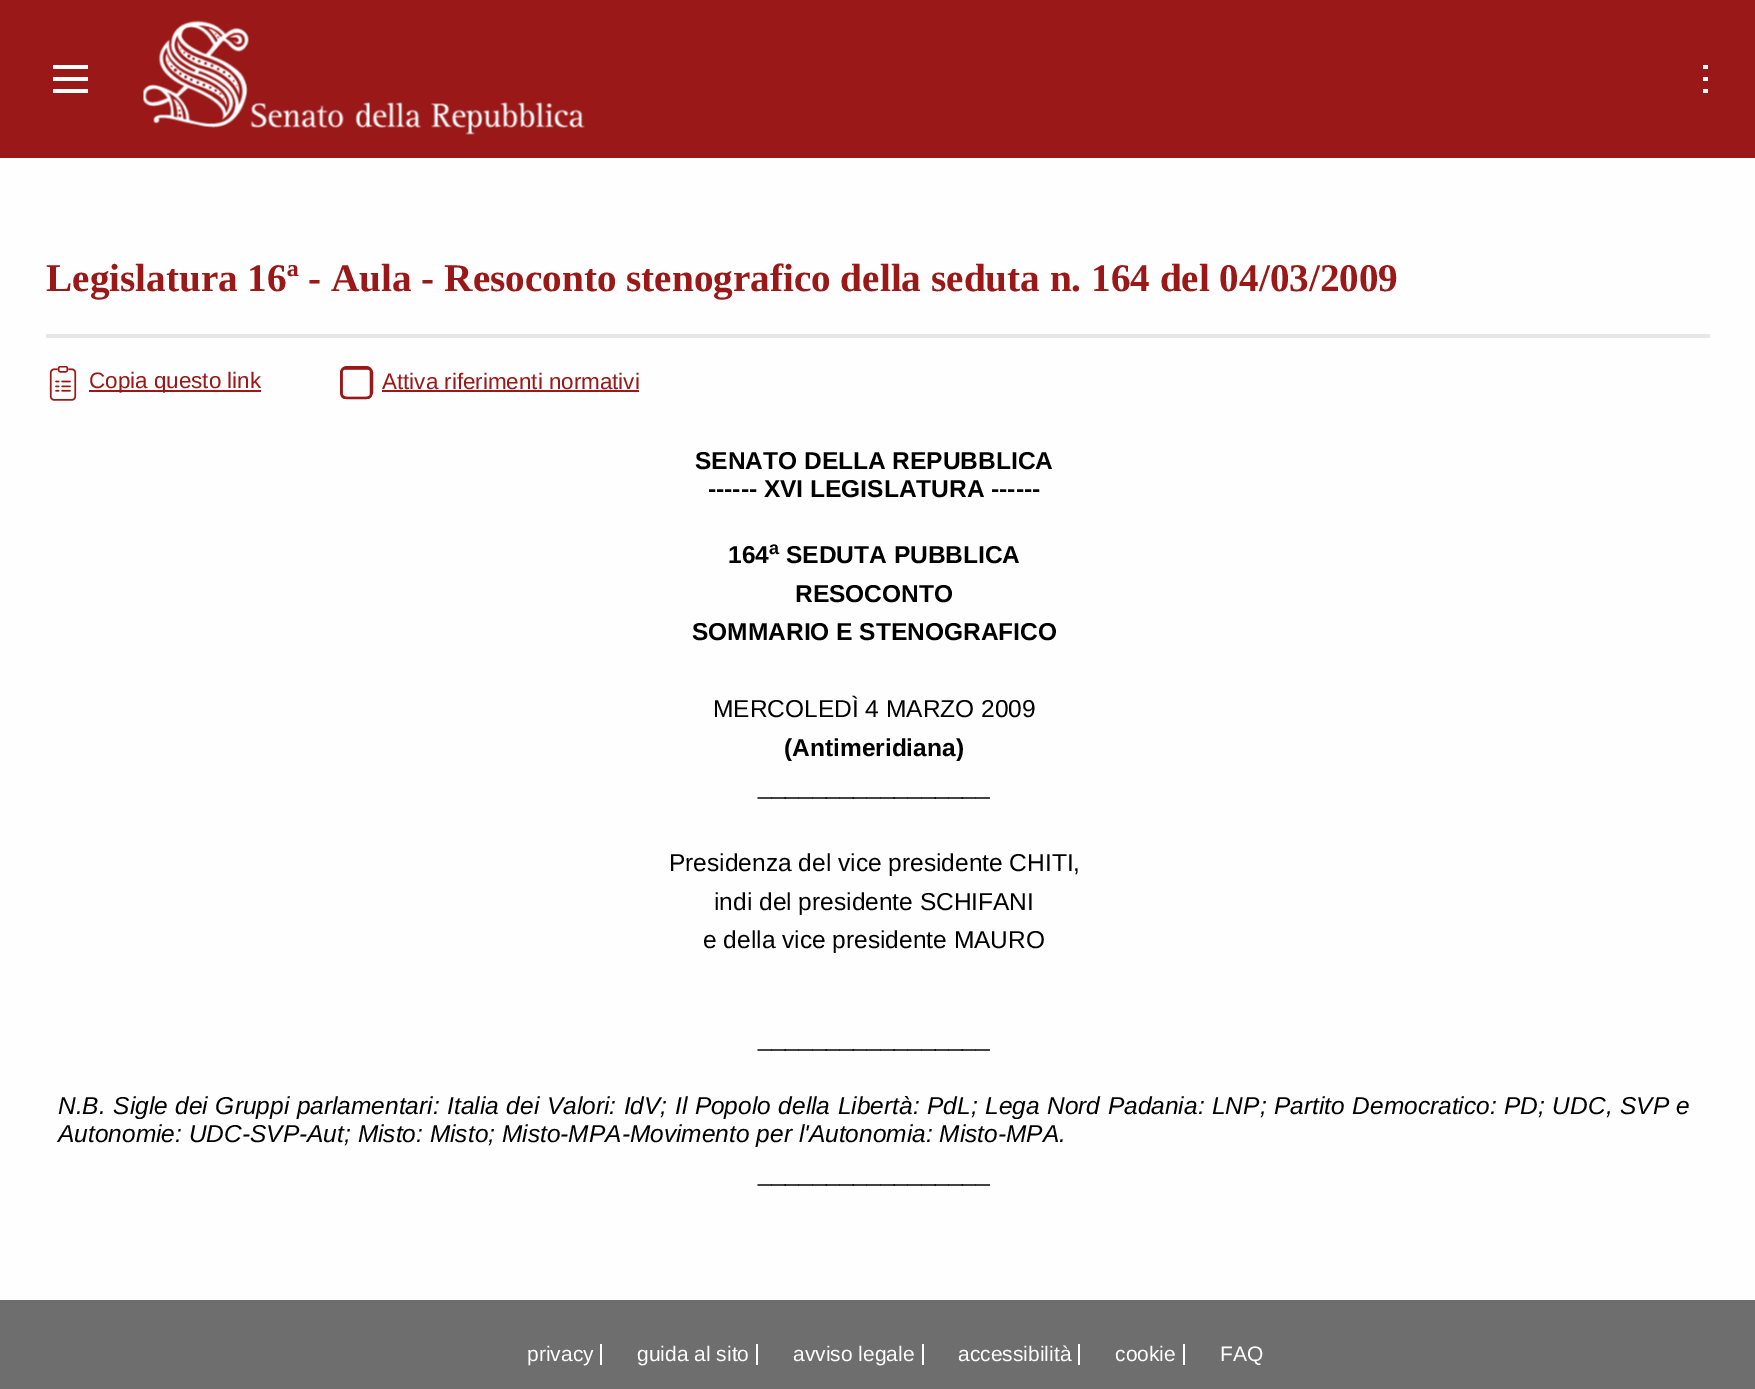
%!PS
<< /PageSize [1755 1389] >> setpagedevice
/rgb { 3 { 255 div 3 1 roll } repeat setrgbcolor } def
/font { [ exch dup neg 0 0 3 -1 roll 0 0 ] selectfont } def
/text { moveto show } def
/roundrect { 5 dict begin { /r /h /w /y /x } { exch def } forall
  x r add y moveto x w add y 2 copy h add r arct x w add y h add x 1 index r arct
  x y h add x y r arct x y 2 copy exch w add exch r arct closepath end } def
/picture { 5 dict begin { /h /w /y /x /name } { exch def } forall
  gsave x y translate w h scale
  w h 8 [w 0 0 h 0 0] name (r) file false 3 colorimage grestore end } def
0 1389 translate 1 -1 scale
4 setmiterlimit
254 254 254 rgb
0 0 1755 1389 rectfill
155 24 24 rgb
0 0 1755 158 rectfill
254 254 254 rgb
53 89 35 4 rectfill
53 77 35 4 rectfill
53 65 35 4 rectfill
(img_01.rgb) 143 20 442 115 picture
1703 89 5 4 rectfill
1703 77 5 4 rectfill
1703 65 5 4 rectfill
231 231 231 rgb
46 334 1664 4 rectfill
(img_02.rgb) 49 366 28 35 picture
155 24 24 rgb
89 390 172 2 rectfill
(img_03.rgb) 340 367 33 32 picture
2 setlinewidth
341 367 31 31 6 roundrect stroke
382 390 257 2 rectfill
110 110 110 rgb
0 1300 1755 89 rectfill
254 254 254 rgb
600 1344 2 21 rectfill
756 1344 2 21 rectfill
922 1344 2 21 rectfill
1078 1344 2 21 rectfill
1183 1344 2 21 rectfill
/LiberationSerif-Bold 39.2 font
155 24 24 rgb
(Legislatura 16ª - Aula - Resoconto stenografico della seduta n. 164 del 04/03/2009) 46 291 text
/LiberationSans-Regular 22.4 font
(Copia questo link) 89 388 text
(Attiva riferimenti normativi) 382 389 text
/LiberationSans-Bold 24.5 font
0 0 0 rgb
(SENATO DELLA REPUBBLICA) 695 469 text
(------ XVI LEGISLATURA ------) 708 497 text
(164) 728 563 text
/LiberationSans-Bold 18 font
(a) 769 554 text
/LiberationSans-Bold 24.5 font
(SEDUTA PUBBLICA) 786 563 text
(RESOCONTO) 795 602 text
(SOMMARIO E STENOGRAFICO) 692 640 text
/LiberationSans-Regular 24.5 font
(MERCOLEDÌ 4 MARZO 2009) 713 717 text
/LiberationSans-Bold 24.5 font
(\(Antimeridiana\)) 784 756 text
/LiberationSans-Regular 24.5 font
(_________________) 758 794 text
(Presidenza del vice presidente CHITI,) 669 871 text
(indi del presidente SCHIFANI) 714 910 text
(e della vice presidente MAURO) 703 948 text
(_________________) 758 1046 text
/LiberationSans-Italic 24.5 font
58 1114 moveto 0.75 0 32 (N.B. Sigle dei Gruppi parlamentari: Italia dei Valori: IdV; Il Popolo della Libertà: PdL; Lega Nord Padania: LNP; Partito Democratico: PD; UDC, SVP e) widthshow
(Autonomie: UDC-SVP-Aut; Misto: Misto; Misto-MPA-Movimento per l'Autonomia: Misto-MPA.) 58 1142 text
/LiberationSans-Regular 24.5 font
(_________________) 758 1181 text
/LiberationSans-Regular 21 font
254 254 254 rgb
(privacy) 527 1361 text
(guida al sito) 637 1361 text
(avviso legale) 793 1361 text
(accessibilità) 958 1361 text
(cookie) 1115 1361 text
(FAQ) 1220 1361 text
showpage
